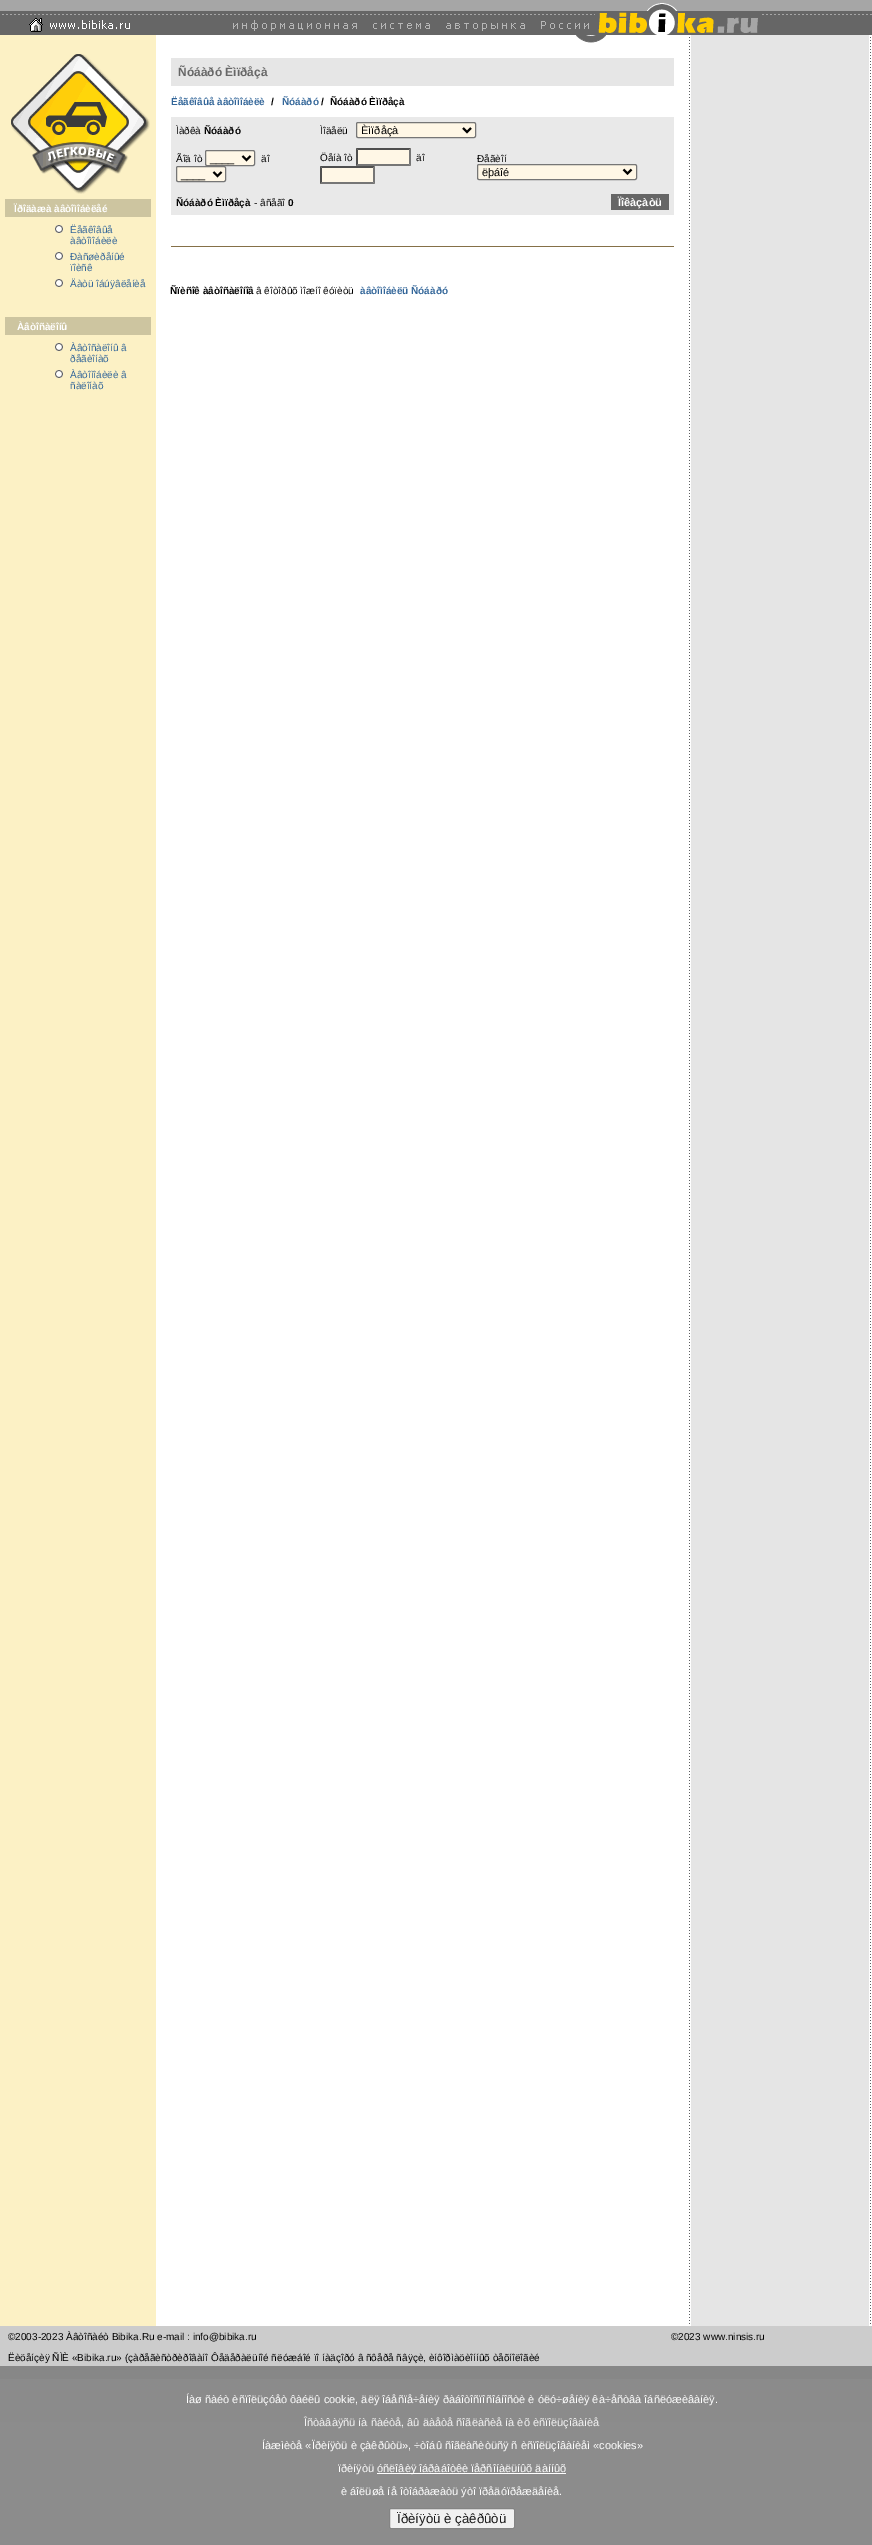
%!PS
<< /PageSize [872 2545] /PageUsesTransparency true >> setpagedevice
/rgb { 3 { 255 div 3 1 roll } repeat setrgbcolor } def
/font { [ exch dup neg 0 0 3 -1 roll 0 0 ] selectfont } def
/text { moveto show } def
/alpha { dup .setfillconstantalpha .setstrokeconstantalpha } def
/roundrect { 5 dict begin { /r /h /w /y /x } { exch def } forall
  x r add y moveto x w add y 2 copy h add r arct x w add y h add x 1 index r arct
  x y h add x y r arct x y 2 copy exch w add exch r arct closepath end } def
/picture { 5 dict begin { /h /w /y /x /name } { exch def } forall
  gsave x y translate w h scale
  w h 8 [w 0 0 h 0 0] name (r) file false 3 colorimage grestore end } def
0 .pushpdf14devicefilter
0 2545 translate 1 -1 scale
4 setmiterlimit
255 255 255 rgb
0 0 872 2545 rectfill
102 102 102 rgb
0 15 872 20 rectfill
(img_01.rgb) 0 0 760 15 picture
(img_02.rgb) 29 18 101 14 picture
(img_03.rgb) 233 20 356 11 picture
(img_04.rgb) 595 3 165 32 picture
(img_05.rgb) 760 0 112 15 picture
252 241 197 rgb
0 35 156 2291 rectfill
(img_06.rgb) 11 54 139 140 picture
205 197 160 rgb
5 199 146 18 rectfill
(img_07.rgb) 55 225 8 8 picture
(img_07.rgb) 55 252 8 8 picture
(img_07.rgb) 55 279 8 8 picture
5 317 146 18 rectfill
(img_07.rgb) 55 343 8 8 picture
(img_07.rgb) 55 370 8 8 picture
(img_08.rgb) 576 35 30 8 picture
230 230 230 rgb
171 58 503 28 rectfill
233 233 233 rgb
171 117 503 98 rectfill
255 247 230 rgb
356.5 122.5 119 15 1.5 roundrect gsave fill grestore
118 118 118 rgb
stroke
0 0 0 rgb
2 setlinewidth
463 128 moveto 4 4 rlineto 4 -4 rlineto stroke
255 247 230 rgb
205.5 150.5 49 15 1.5 roundrect gsave fill grestore
118 118 118 rgb
1 setlinewidth
stroke
0 0 0 rgb
2 setlinewidth
242.5 156 moveto 4 4 rlineto 4 -4 rlineto stroke
255 247 230 rgb
176.5 166.5 49 15 1.5 roundrect gsave fill grestore
118 118 118 rgb
1 setlinewidth
stroke
0 0 0 rgb
2 setlinewidth
213.5 172 moveto 4 4 rlineto 4 -4 rlineto stroke
255 247 230 rgb
356 148 55 18 rectfill
79 79 79 rgb
356 148 moveto 55 0 rlineto -2 2 rlineto -51 0 rlineto closepath fill
118 118 118 rgb
411 148 moveto 0 18 rlineto -2 -2 rlineto 0 -14 rlineto closepath fill
411 166 moveto -55 0 rlineto 2 -2 rlineto 51 0 rlineto closepath fill
79 79 79 rgb
356 166 moveto 0 -18 rlineto 2 2 rlineto 0 14 rlineto closepath fill
255 247 230 rgb
320 166 55 18 rectfill
79 79 79 rgb
320 166 moveto 55 0 rlineto -2 2 rlineto -51 0 rlineto closepath fill
118 118 118 rgb
375 166 moveto 0 18 rlineto -2 -2 rlineto 0 -14 rlineto closepath fill
375 184 moveto -55 0 rlineto 2 -2 rlineto 51 0 rlineto closepath fill
79 79 79 rgb
320 184 moveto 0 -18 rlineto 2 2 rlineto 0 14 rlineto closepath fill
255 247 230 rgb
477.5 164.5 159 15 1.5 roundrect gsave fill grestore
118 118 118 rgb
1 setlinewidth
stroke
0 0 0 rgb
2 setlinewidth
623.5 169.5 moveto 4 4 rlineto 4 -4 rlineto stroke
102 102 102 rgb
611 194 58 16 rectfill
133 112 72 rgb
171 246 503 1 rectfill
(img_09.rgb) 689 37 1 2287 picture
229 229 229 rgb
691 35 178 2291 rectfill
(img_09.rgb) 870 37 1 2287 picture
204 204 204 rgb
0 2326 872 53 rectfill
239 239 239 rgb
0 2379 872 43 rectfill
0.9 alpha
128 128 128 rgb
0 2366 872 179 rectfill
1 alpha
255 255 255 rgb
377 2473 189 1 rectfill
241 241 241 rgb
389.5 2508.5 125 20 1.5 roundrect gsave fill grestore
132 132 132 rgb
1 setlinewidth
stroke
/LiberationSans-Bold 10 font
255 255 255 rgb
(Ïðîäàæà àâòîìîáèëåé) 14 212 text
/LiberationSans-Regular 10 font
51 102 153 rgb
(Ëåãêîâûå) 70 233 text
(àâòîìîáèëè) 70 244 text
(Ðàñøèðåíûé) 70 260 text
(ïîèñê) 70 271 text
(Äàòü îáúÿâëåíèå) 70 287 text
/LiberationSans-Bold 10 font
255 255 255 rgb
(Àâòîñàëîíû) 17 330 text
/LiberationSans-Regular 10 font
51 102 153 rgb
(Àâòîñàëîíû â) 70 351 text
(ðåãèîíàõ) 70 362 text
(Àâòîìîáèëè â) 70 378 text
(ñàëîíàõ) 70 389 text
/LiberationSans-Bold 12 font
102 102 102 rgb
(Ñóáàðó Èìïðåçà) 178 76 text
/LiberationSans-Bold 10 font
51 102 153 rgb
(Ëåãêîâûå àâòîìîáèëè) 171 105 text
0 0 0 rgb
(/) 271 105 text
51 102 153 rgb
(Ñóáàðó) 282 105 text
0 0 0 rgb
(/) 321 105 text
(Ñóáàðó Èìïðåçà) 330 105 text
/LiberationSans-Regular 10 font
(Ìàðêà) 176 134 text
/LiberationSans-Bold 10 font
(Ñóáàðó) 204 134 text
/LiberationSans-Regular 10 font
(Ìîäåëü) 320 134 text
/LiberationSans-Regular 11 font
(Èìïðåçà) 361 134 text
/LiberationSans-Regular 10 font
(Ãîä îò) 176 162 text
(äî) 261 162 text
/LiberationSans-Regular 11 font
(____) 210 162 text
(____) 181 178 text
/LiberationSans-Regular 10 font
(Öåíà îò) 320 161 text
(äî) 416 161 text
(Ðåãèîí) 477 162 text
/LiberationSans-Regular 11 font
(ëþáîé) 482 176 text
/LiberationSans-Bold 10 font
(Ñóáàðó Èìïðåçà) 176 206 text
/LiberationSans-Regular 10 font
(- âñåãî) 254 206 text
/LiberationSans-Bold 10 font
(0) 288 206 text
/LiberationSans-Bold 11 font
255 255 255 rgb
(Ïîêàçàòü) 618 206 text
/LiberationSans-Bold 10 font
0 0 0 rgb
(Ñïèñîê àâòîñàëîíîâ) 170 294 text
/LiberationSans-Regular 10 font
(â êîòîðûõ ìîæíî êóïèòü) 256 294 text
/LiberationSans-Bold 10 font
51 102 153 rgb
(àâòîìîáèëü Ñóáàðó) 360 294 text
/LiberationSans-Regular 10 font
0 0 0 rgb
(©2003-2023 Àâòîñàéò Bibika.Ru e-mail : info@bibika.ru) 8 2340 text
(©2023 www.ninsis.ru) 671 2340 text
(Ëèöåíçèÿ ÑÌÈ «Bibika.ru» \(çàðåãèñòðèðîâàíî Ôåäåðàëüíîé ñëóæáîé ïî íàäçîðó â ñôåðå ñâÿçè, èíôîðìàöèîííûõ òåõíîëîãèé) 8 2361 text
/LiberationSans-Regular 11 font
255 255 255 rgb
(Íàø ñàéò èñïîëüçóåò ôàéëû cookie, äëÿ îáåñïå÷åíèÿ ðàáîòîñïîñîáíîñòè è óëó÷øåíèÿ êà÷åñòâà îáñëóæèâàíèÿ.) 186 2403 text
244 244 244 rgb
(Îñòàâàÿñü íà ñàéòå, âû äàåòå ñîãëàñèå íà èõ èñïîëüçîâàíèå) 304 2426 text
255 255 255 rgb
(Íàæìèòå «Ïðèíÿòü è çàêðûòü», ÷òîáû ñîãëàñèòüñÿ ñ èñïîëüçîâàíèåì «cookies») 262 2449 text
(ïðèíÿòü) 338 2472 text
(óñëîâèÿ îáðàáîòêè ïåðñîíàëüíûõ äàííûõ) 377 2472 text
(è áîëüøå íå îòîáðàæàòü ýòî ïðåäóïðåæäåíèå.) 341 2495 text
/LiberationSans-Regular 13.25 font
26 26 26 rgb
(Ïðèíÿòü è çàêðûòü) 397 2523 text
.poppdf14devicefilter showpage
